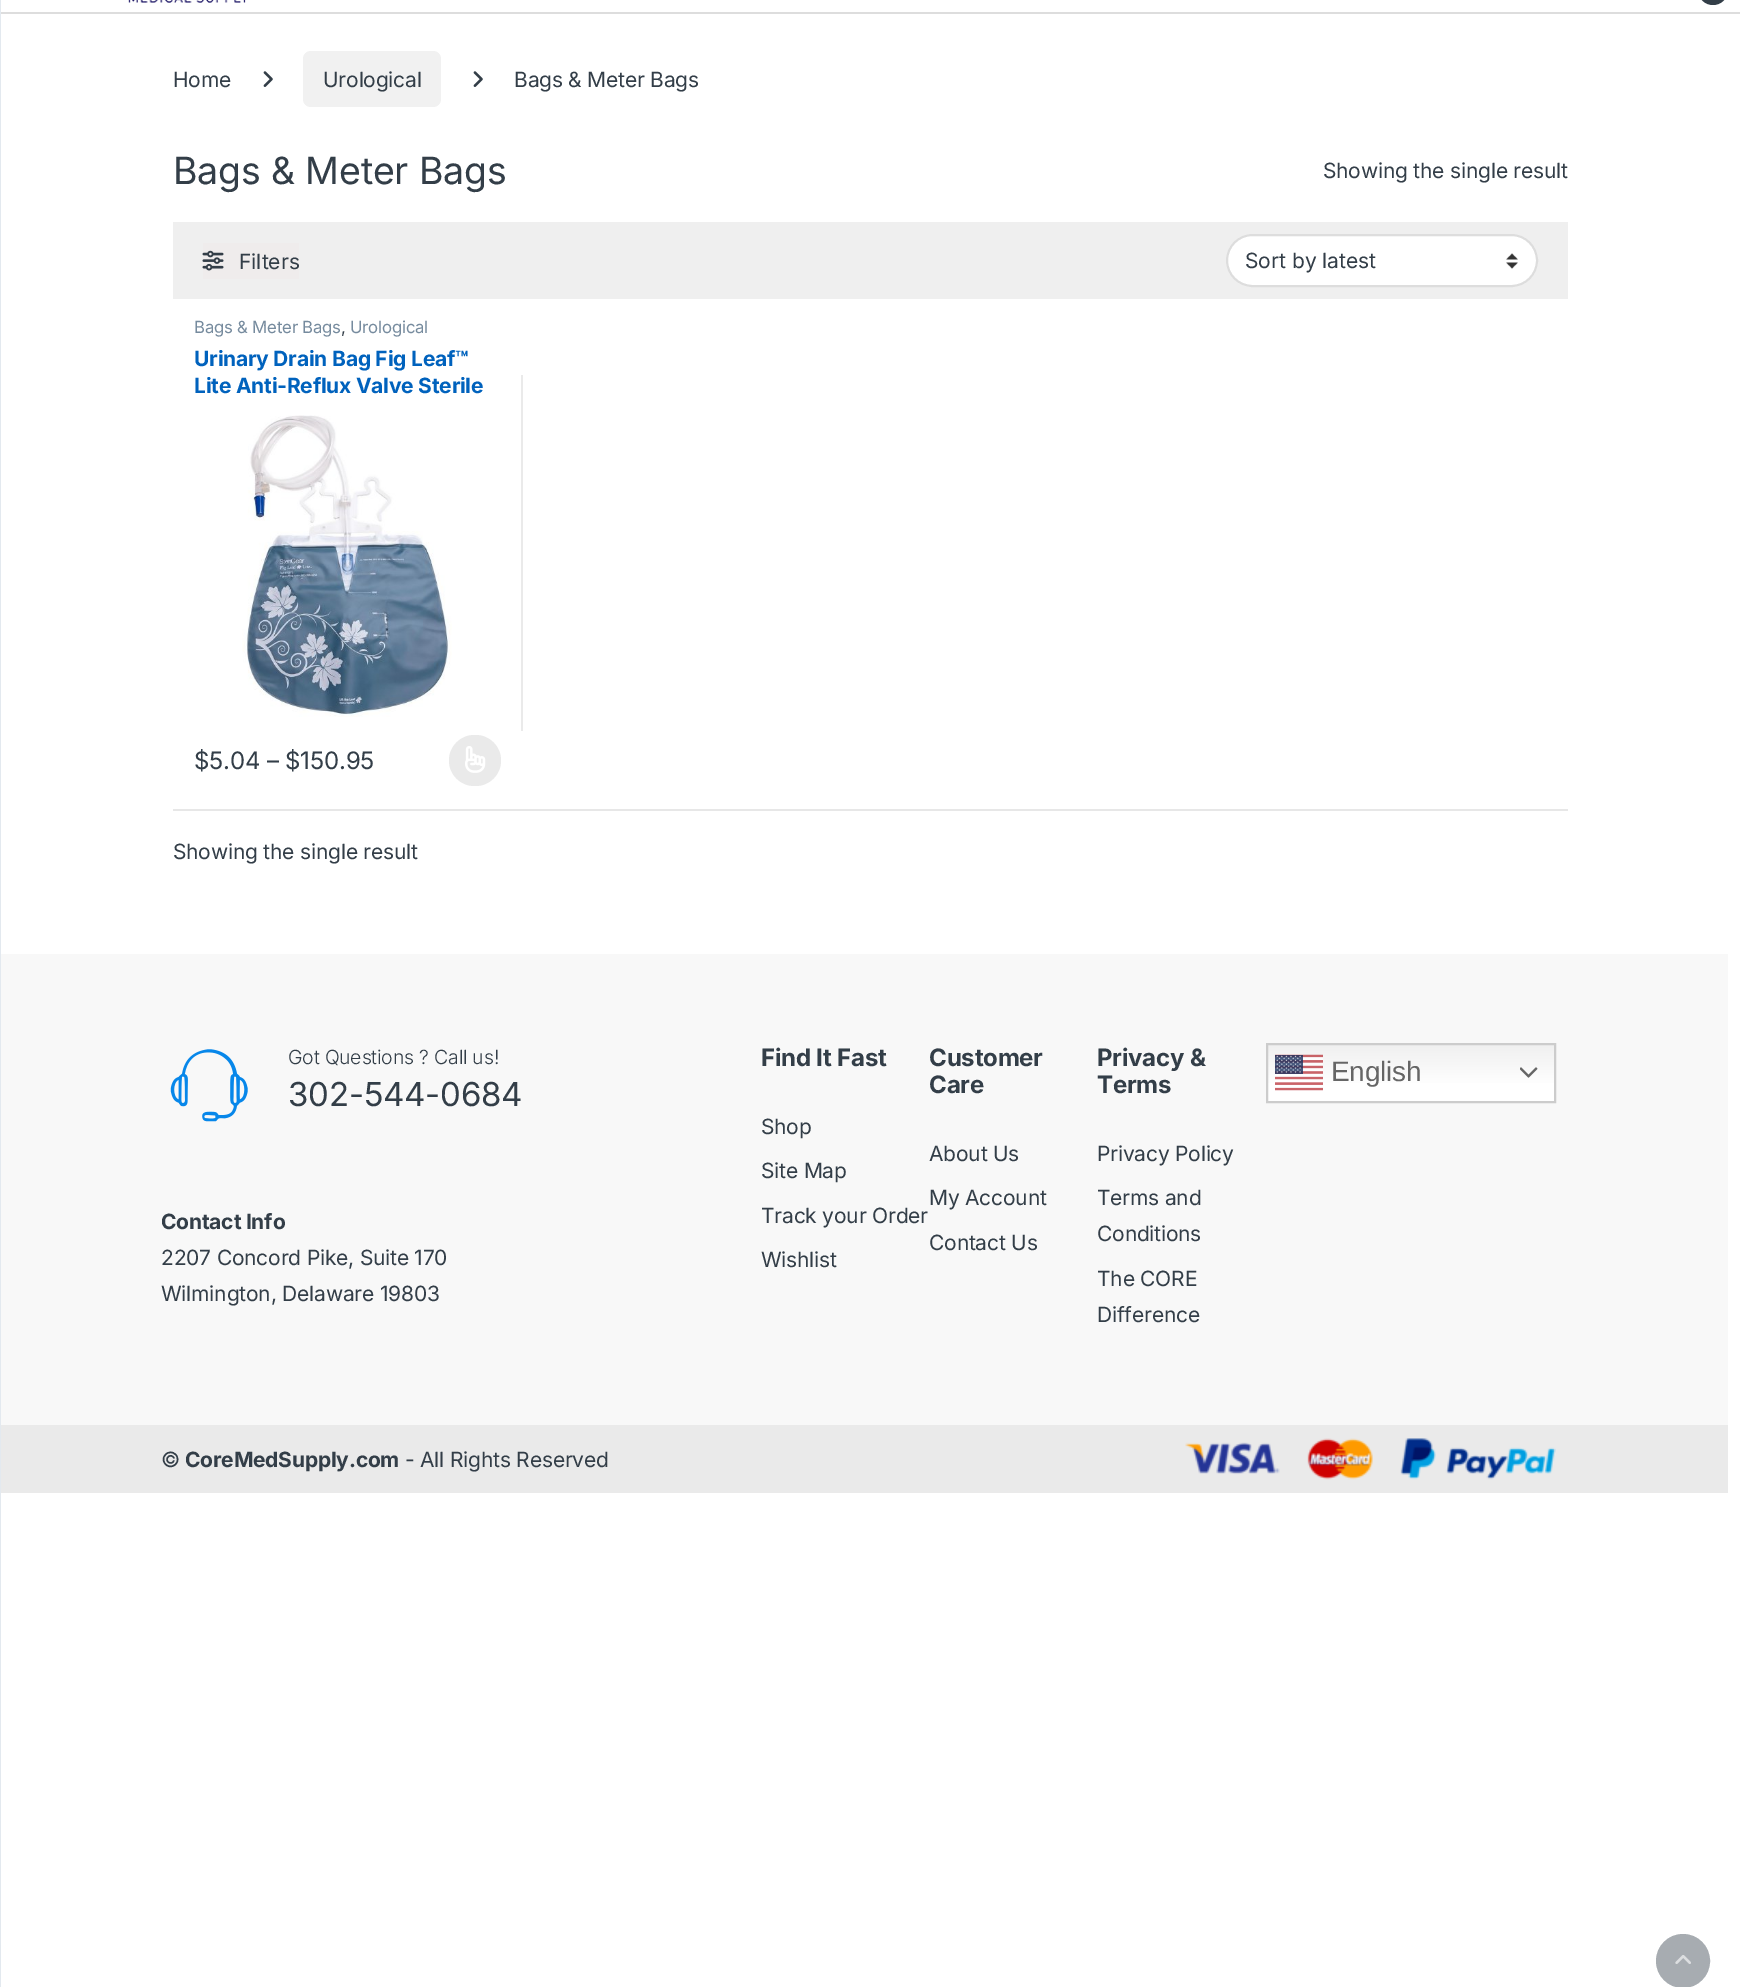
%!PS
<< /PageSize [1740 1987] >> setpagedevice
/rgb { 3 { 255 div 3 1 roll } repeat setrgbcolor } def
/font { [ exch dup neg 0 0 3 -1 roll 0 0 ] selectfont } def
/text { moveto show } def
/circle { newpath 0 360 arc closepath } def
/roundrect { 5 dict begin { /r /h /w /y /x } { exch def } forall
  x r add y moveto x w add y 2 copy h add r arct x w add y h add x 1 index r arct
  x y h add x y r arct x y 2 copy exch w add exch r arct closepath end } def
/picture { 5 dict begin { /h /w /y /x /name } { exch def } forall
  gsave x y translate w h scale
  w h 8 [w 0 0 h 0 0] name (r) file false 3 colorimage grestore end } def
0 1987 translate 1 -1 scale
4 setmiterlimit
255 255 255 rgb
0 0 1740 1987 rectfill
221 221 221 rgb
0 12 1740 2 rectfill
51 62 72 rgb
1698 -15 30 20 15 roundrect fill
227 233 239 rgb
0 0 1 1987 rectfill
(img_01.rgb) 128 0 118 3 picture
(img_02.rgb) 263 71 10 16 picture
241 241 241 rgb
303 51 138 56 8 roundrect fill
(img_02.rgb) 473 71 10 16 picture
239 239 239 rgb
173 222 1395 77 rectfill
239 236 236 rgb
203 243 96 36 rectfill
(img_03.rgb) 202 250 22 21 picture
255 255 255 rgb
1226 234 312 53 26.5 roundrect fill
(img_04.rgb) 1506 253 12 16 picture
221 221 221 rgb
2 setlinewidth
1227 235 310 51 25.5 roundrect stroke
(img_05.rgb) 242 415 210 302 picture
234 234 234 rgb
449 735 52 51 25.5 roundrect fill
(img_06.rgb) 465 746 21 27 picture
521 375 2 356 rectfill
231 231 231 rgb
173 809 1395 2 rectfill
248 248 248 rgb
1 954 1727 471 rectfill
(img_07.rgb) 170 1049 78 73 picture
gsave 1268 1045 moveto 286 0 rlineto 0 56 rlineto -286 0 rlineto closepath clip newpath
<< /ShadingType 2 /ColorSpace /DeviceRGB /Coords [1411 1043 1411 1103] /Extend [true true] /Function << /FunctionType 3 /Domain [0 1] /Functions [<< /FunctionType 2 /Domain [0 1] /C0 [0.937 0.937 0.937] /C1 [1 1 1] /N 1 >> << /FunctionType 2 /Domain [0 1] /C0 [1 1 1] /C1 [1 1 1] /N 1 >>] /Bounds [0.7] /Encode [0 1 0 1] >> >> shfill grestore
204 204 204 rgb
1267 1044 288 58 rectstroke
(img_08.rgb) 1275 1054 48 37 picture
(img_09.rgb) 1520 1067 18 11 picture
234 234 234 rgb
1 1425 1727 68 rectfill
(img_10.rgb) 1185 1438 371 42 picture
167 172 177 rgb
1683 1961 26 circle gsave fill grestore
stroke
(img_11.rgb) 1675 1955 16 9 picture
/Inter-Regular 21 font
51 62 72 rgb
173 87 moveto -0.2 0 (Home) ashow
323 87 moveto -0.2 0 (Urological) ashow
514 87 moveto -0.2 0 (Bags & Meter Bags) ashow
/Inter-Regular 37.5 font
173 184 moveto -0.2 0 (Bags & Meter Bags) ashow
/Inter-Regular 21 font
1323 178 moveto -0.2 0 (Showing the single result) ashow
(Filters) 239 269 text
(Sort by latest) 1245 268 text
/Inter-Regular 16.75 font
118 139 158 rgb
194 333 moveto -0.2 0 (Bags & Meter Bags) ashow
51 62 72 rgb
341 333 moveto -0.2 0 (,) ashow
118 139 158 rgb
350 333 moveto -0.2 0 (Urological) ashow
/Inter-Bold 21 font
0 98 189 rgb
194 366 moveto -0.2 0 (Urinary Drain Bag Fig Leaf™) ashow
194 393 moveto -0.2 0 (Lite Anti-Reflux Valve Sterile) ashow
/Inter-Regular 24 font
51 62 72 rgb
194 769 moveto -0.2 0 ($5.04 – $150.95) ashow
/Inter-Regular 21 font
173 859 moveto -0.2 0 (Showing the single result) ashow
/Inter-Light 19.5 font
288 1064 moveto -0.2 0 (Got Questions ? Call us!) ashow
/Inter-Regular 33 font
288 1106 moveto -0.2 0 (302-544-0684) ashow
/Inter-Bold 21 font
161 1229 moveto -0.2 0 (Contact Info) ashow
/Inter-Regular 21 font
161 1265 moveto -0.2 0 (2207 Concord Pike, Suite 170) ashow
161 1301 moveto -0.2 0 (Wilmington, Delaware 19803) ashow
/Inter-Bold 24 font
761 1066 moveto -0.2 0 (Find It Fast) ashow
/Inter-Regular 21 font
761 1134 moveto -0.2 0 (Shop) ashow
761 1178 moveto -0.2 0 (Site Map) ashow
761 1223 moveto -0.2 0 (Track your Order) ashow
761 1267 moveto -0.2 0 (Wishlist) ashow
/Inter-Bold 24 font
929 1066 moveto -0.2 0 (Customer) ashow
929 1093 moveto -0.2 0 (Care) ashow
/Inter-Regular 21 font
929 1161 moveto -0.2 0 (About Us) ashow
929 1205 moveto -0.2 0 (My Account) ashow
929 1250 moveto -0.2 0 (Contact Us) ashow
/Inter-Bold 24 font
1097 1066 moveto -0.2 0 (Privacy &) ashow
1097 1093 moveto -0.2 0 (Terms) ashow
/Inter-Regular 21 font
1097 1161 moveto -0.2 0 (Privacy Policy) ashow
1097 1205 moveto -0.2 0 (Terms and) ashow
1097 1241 moveto -0.2 0 (Conditions) ashow
1097 1286 moveto -0.2 0 (The CORE) ashow
1097 1322 moveto -0.2 0 (Difference) ashow
/LiberationSans-Regular 28 font
102 102 102 rgb
1331 1081 moveto -0.2 0 (English) ashow
/Inter-Regular 21 font
51 62 72 rgb
161 1467 moveto -0.2 0 (©) ashow
/Inter-Bold 21 font
185 1467 moveto -0.2 0 (CoreMedSupply.com) ashow
/Inter-Regular 21 font
405 1467 moveto -0.2 0 (- All Rights Reserved) ashow
showpage
